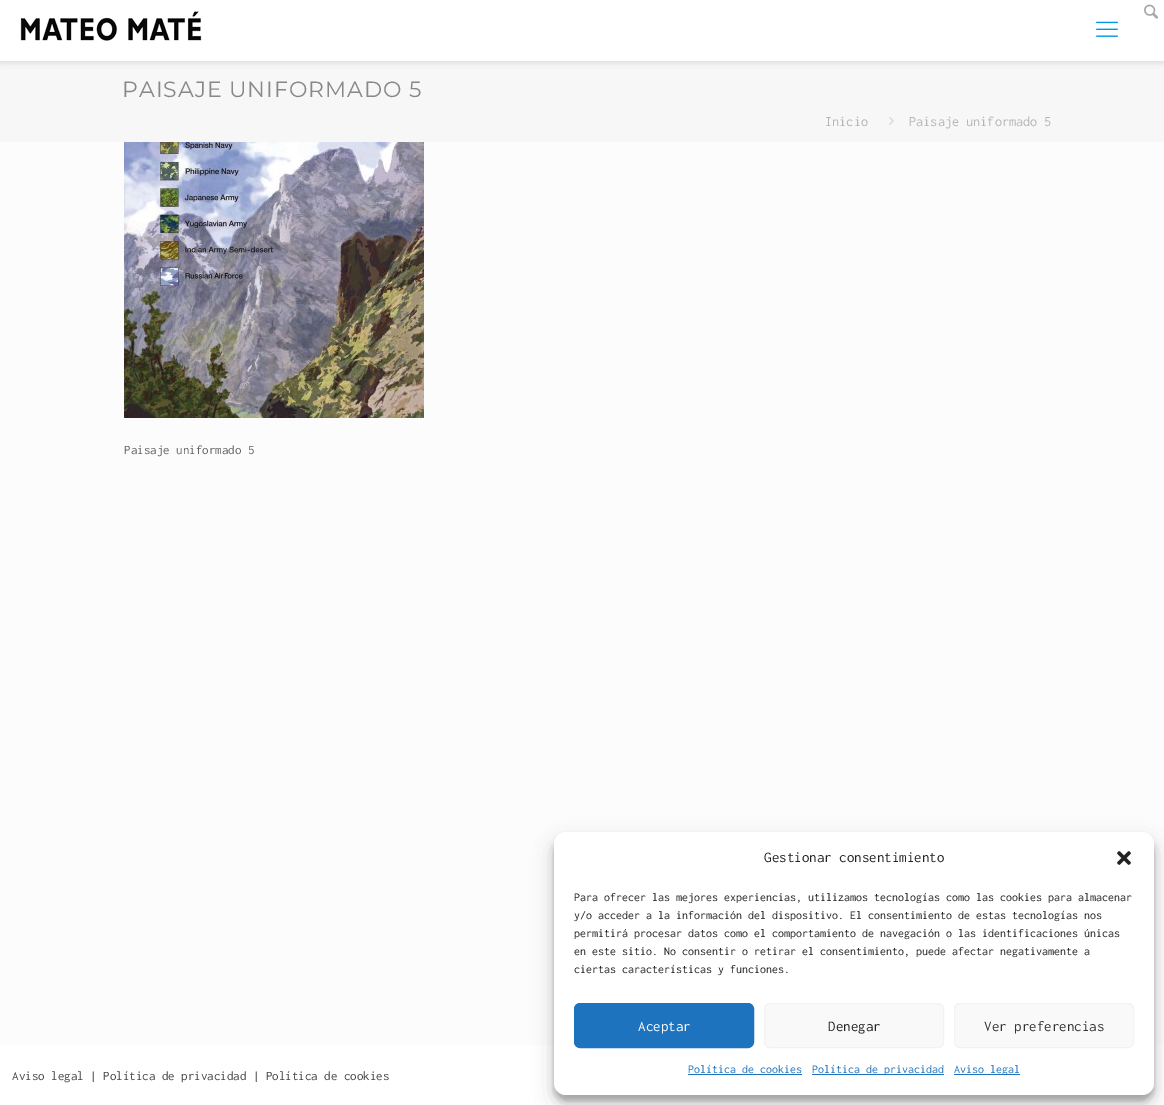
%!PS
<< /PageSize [1164 1105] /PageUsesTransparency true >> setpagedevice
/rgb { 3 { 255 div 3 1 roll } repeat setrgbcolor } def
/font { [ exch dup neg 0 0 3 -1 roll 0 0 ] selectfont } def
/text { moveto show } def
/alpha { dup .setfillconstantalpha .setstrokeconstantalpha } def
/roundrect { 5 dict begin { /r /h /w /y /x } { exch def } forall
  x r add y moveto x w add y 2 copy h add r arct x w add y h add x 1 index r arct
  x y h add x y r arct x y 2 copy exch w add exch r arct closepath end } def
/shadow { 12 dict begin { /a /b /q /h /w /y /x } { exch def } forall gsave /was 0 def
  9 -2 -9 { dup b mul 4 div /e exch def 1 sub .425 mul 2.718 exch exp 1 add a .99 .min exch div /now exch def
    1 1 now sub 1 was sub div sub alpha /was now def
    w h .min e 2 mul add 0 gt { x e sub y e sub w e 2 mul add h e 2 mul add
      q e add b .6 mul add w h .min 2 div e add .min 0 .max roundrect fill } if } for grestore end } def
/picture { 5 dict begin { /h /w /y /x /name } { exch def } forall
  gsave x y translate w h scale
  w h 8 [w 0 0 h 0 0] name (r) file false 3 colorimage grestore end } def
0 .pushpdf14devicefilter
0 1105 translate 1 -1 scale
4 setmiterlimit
252 252 252 rgb
0 0 1164 1105 rectfill
247 247 247 rgb
0 61 1164 81 rectfill
0 0 0 rgb
0 2 1164 61 0 2.5 0.1 shadow
255 255 255 rgb
0 0 1164 61 rectfill
(img_01.rgb) 1144 4 15 15 picture
(img_02.rgb) 20 11 182 30 picture
(img_03.rgb) 1096 21 22 16 picture
(img_04.rgb) 889 117 5 8 picture
(img_05.rgb) 124 142 300 276 picture
0 1045 1164 60 rectfill
0 0 0 rgb
554 838 600 263 12 3 0.23 shadow
554 842 600 263 12 10 0.19 shadow
255 255 255 rgb
554 832 600 263 12 roundrect fill
(img_06.rgb) 1117 851 14 14 picture
30 115 190 rgb
574.5 1003.5 179 44 5.5 roundrect gsave fill grestore
stroke
249 249 249 rgb
764.5 1003.5 179 44 5.5 roundrect gsave fill grestore
242 242 242 rgb
stroke
249 249 249 rgb
954.5 1003.5 179 44 5.5 roundrect gsave fill grestore
242 242 242 rgb
stroke
30 115 190 rgb
688 1074 114 1 rectfill
812 1074 132 1 rectfill
954 1074 66 1 rectfill
/Montserrat-Thin 22 font
136 136 136 rgb
122 97 moveto 1 0 (PAISAJE UNIFORMADO 5) ashow
/Inconsolata-Regular 14.25 font
180 180 180 rgb
(Inicio) 825 126 text
(Paisaje uniformado 5) 909 126 text
/Inconsolata-Regular 13 font
98 98 98 rgb
(Paisaje uniformado 5) 124 454 text
68 68 68 rgb
(Aviso legal | Política de privacidad | Política de cookies) 12 1080 text
/Inconsolata-Regular 15 font
34 34 34 rgb
(Gestionar consentimiento) 764 862 text
/Inconsolata-Regular 12 font
(Para ofrecer las mejores experiencias, utilizamos tecnologías como las cookies para almacenar) 574 901 text
(y/o acceder a la información del dispositivo. El consentimiento de estas tecnologías nos) 574 919 text
(permitirá procesar datos como el comportamiento de navegación o las identificaciones únicas) 574 937 text
(en este sitio. No consentir o retirar el consentimiento, puede afectar negativamente a) 574 955 text
(ciertas características y funciones.) 574 973 text
/Inconsolata-Regular 15 font
255 255 255 rgb
(Aceptar) 638 1031 text
34 34 34 rgb
(Denegar) 828 1031 text
51 51 51 rgb
(Ver preferencias) 984 1031 text
/Inconsolata-Regular 12 font
30 115 190 rgb
(Política de cookies) 688 1073 text
(Política de privacidad) 812 1073 text
(Aviso legal) 954 1073 text
.poppdf14devicefilter showpage
